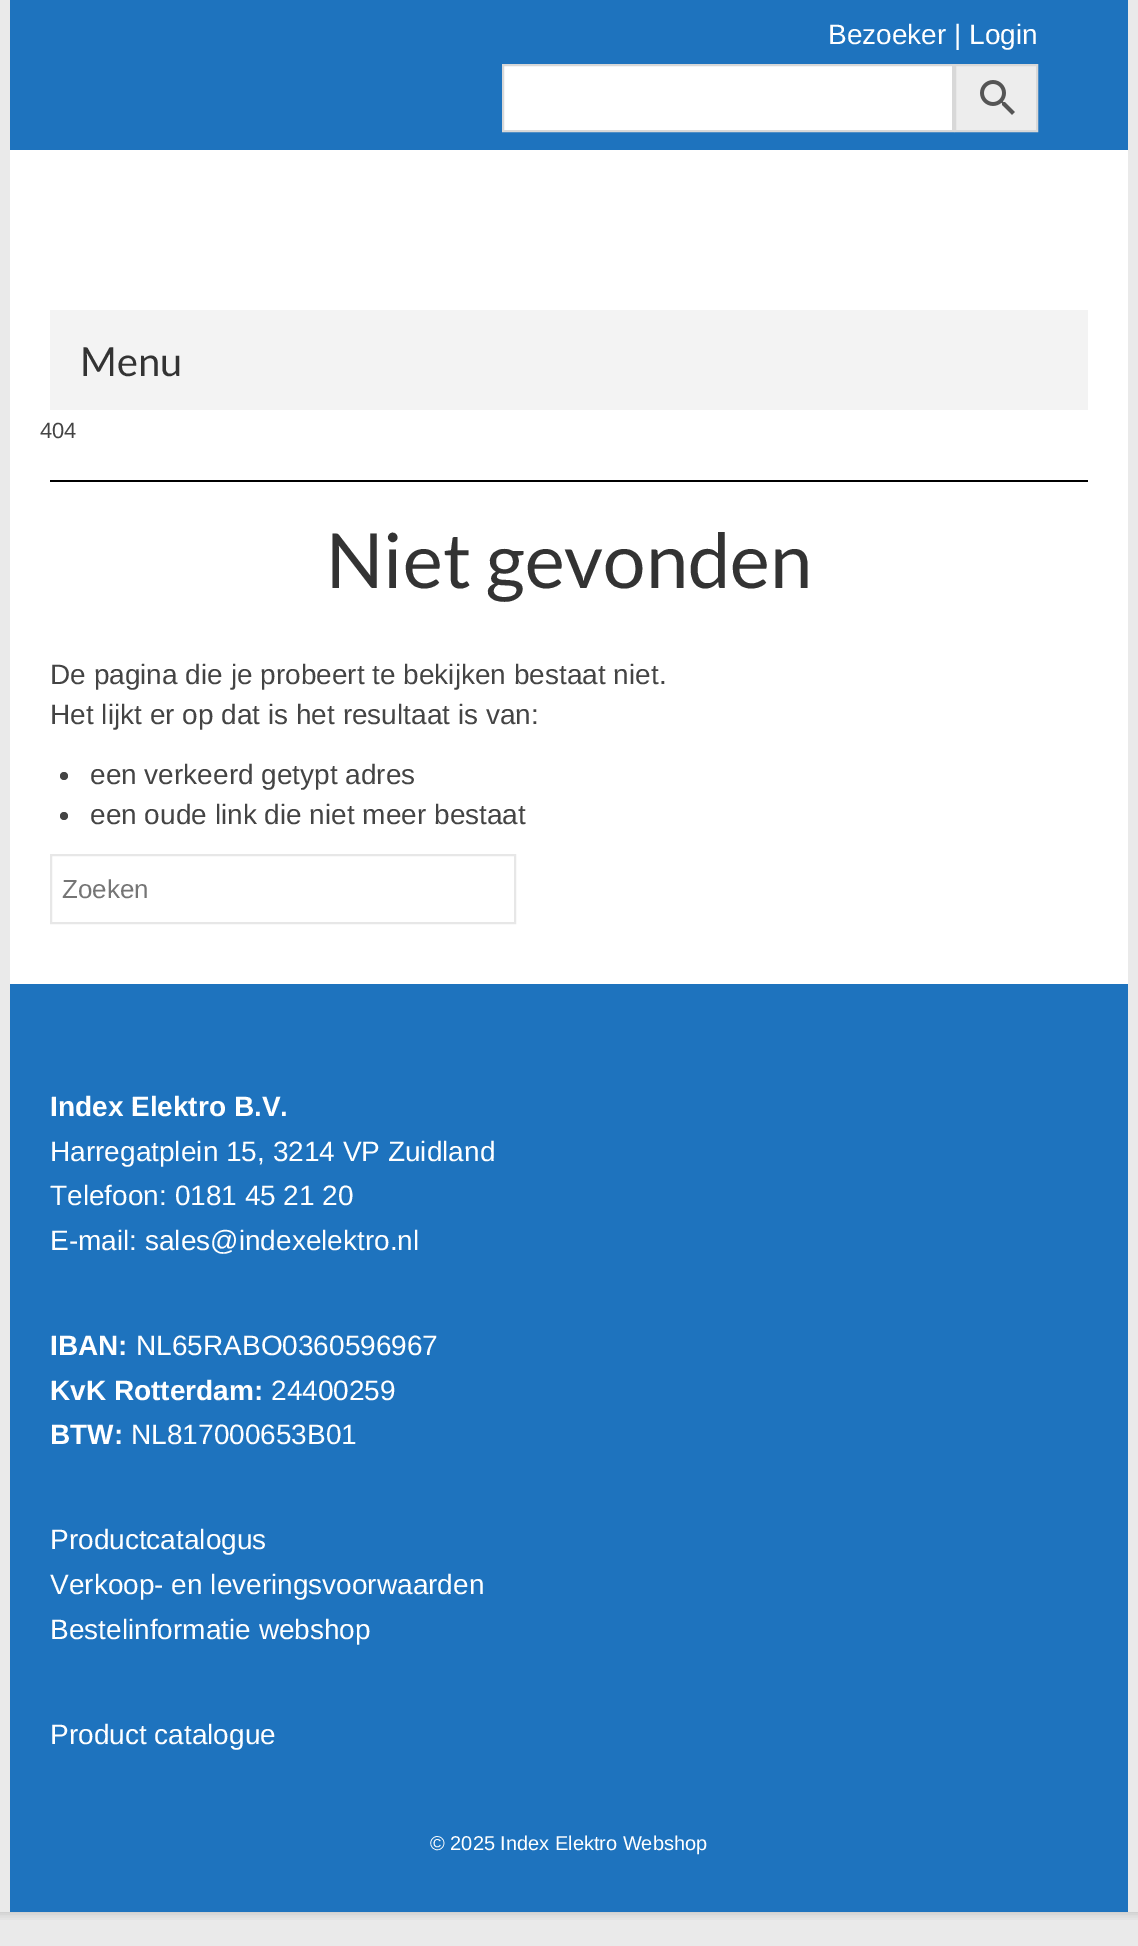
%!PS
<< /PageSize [1138 1946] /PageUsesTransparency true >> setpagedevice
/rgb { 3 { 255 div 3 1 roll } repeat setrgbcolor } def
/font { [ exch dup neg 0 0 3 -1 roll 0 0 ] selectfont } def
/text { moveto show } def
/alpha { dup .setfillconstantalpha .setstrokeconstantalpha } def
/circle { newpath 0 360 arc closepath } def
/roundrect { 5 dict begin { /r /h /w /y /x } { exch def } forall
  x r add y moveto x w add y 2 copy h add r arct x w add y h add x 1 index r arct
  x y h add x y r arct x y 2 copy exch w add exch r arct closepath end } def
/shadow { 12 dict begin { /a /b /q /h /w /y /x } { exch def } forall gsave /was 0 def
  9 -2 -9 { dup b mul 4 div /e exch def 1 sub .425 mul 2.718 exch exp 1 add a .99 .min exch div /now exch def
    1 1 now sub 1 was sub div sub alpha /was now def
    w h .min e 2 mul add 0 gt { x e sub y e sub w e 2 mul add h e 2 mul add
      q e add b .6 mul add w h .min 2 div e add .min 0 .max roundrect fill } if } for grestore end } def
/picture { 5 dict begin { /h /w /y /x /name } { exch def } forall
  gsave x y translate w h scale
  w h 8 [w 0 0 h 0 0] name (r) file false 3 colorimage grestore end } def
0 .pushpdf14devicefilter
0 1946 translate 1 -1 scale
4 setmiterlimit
234 234 234 rgb
0 0 1138 1946 rectfill
gsave
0 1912 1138 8 rectclip
0 0 0 rgb
-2 -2 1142 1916 0 5 0.16 shadow
grestore
255 255 255 rgb
10 150 1118 834 rectfill
30 115 190 rgb
10 0 1118 150 rectfill
255 255 255 rgb
503 65 moveto 450 0 rlineto 0 66 rlineto -450 0 rlineto closepath gsave fill grestore
216 216 216 rgb
2 setlinewidth
stroke
237 237 237 rgb
955 65 moveto 82 0 rlineto 0 66 rlineto -82 0 rlineto closepath gsave fill grestore
216 216 216 rgb
stroke
(img_01.rgb) 980 80 35 35 picture
243 243 243 rgb
50 310 1038 100 rectfill
0 0 0 rgb
50 480 1038 2 rectfill
68 68 68 rgb
64 776 4 circle fill
64 816 4 circle fill
231 231 231 rgb
51 855 464 68 rectstroke
30 115 190 rgb
10 984 1118 928 rectfill
/LiberationSans-Regular 28 font
255 255 255 rgb
(Bezoeker | Login) 828 44 text
/Lato-Regular 40 font
51 51 51 rgb
(Menu) 80 376 text
/LiberationSans-Regular 22 font
68 68 68 rgb
(404) 40 438 text
/Lato-Regular 76 font
51 51 51 rgb
(Niet gevonden) 326 588 text
/LiberationSans-Regular 28 font
68 68 68 rgb
(De pagina die je probeert te bekijken bestaat niet.) 50 684 text
(Het lijkt er op dat is het resultaat is van:) 50 724 text
(een verkeerd getypt adres) 90 784 text
(een oude link die niet meer bestaat) 90 824 text
/LiberationSans-Regular 26 font
117 117 117 rgb
(Zoeken) 62 898 text
/LiberationSans-Bold 28 font
255 255 255 rgb
(Index Elektro B.V.) 50 1116 text
/LiberationSans-Regular 28 font
(Harregatplein 15, 3214 VP Zuidland) 50 1161 text
(Telefoon: 0181 45 21 20) 50 1205 text
(E-mail: sales@indexelektro.nl) 50 1250 text
/LiberationSans-Bold 28 font
(IBAN:) 50 1355 text
/LiberationSans-Regular 28 font
(NL65RABO0360596967) 136 1355 text
/LiberationSans-Bold 28 font
(KvK Rotterdam:) 50 1400 text
/LiberationSans-Regular 28 font
(24400259) 271 1400 text
/LiberationSans-Bold 28 font
(BTW:) 50 1444 text
/LiberationSans-Regular 28 font
(NL817000653B01) 131 1444 text
(Productcatalogus) 50 1549 text
(Verkoop- en leveringsvoorwaarden) 50 1594 text
(Bestelinformatie webshop) 50 1639 text
(Product catalogue) 50 1744 text
/LiberationSans-Regular 20 font
(© 2025 Index Elektro Webshop) 430 1850 text
.poppdf14devicefilter showpage
